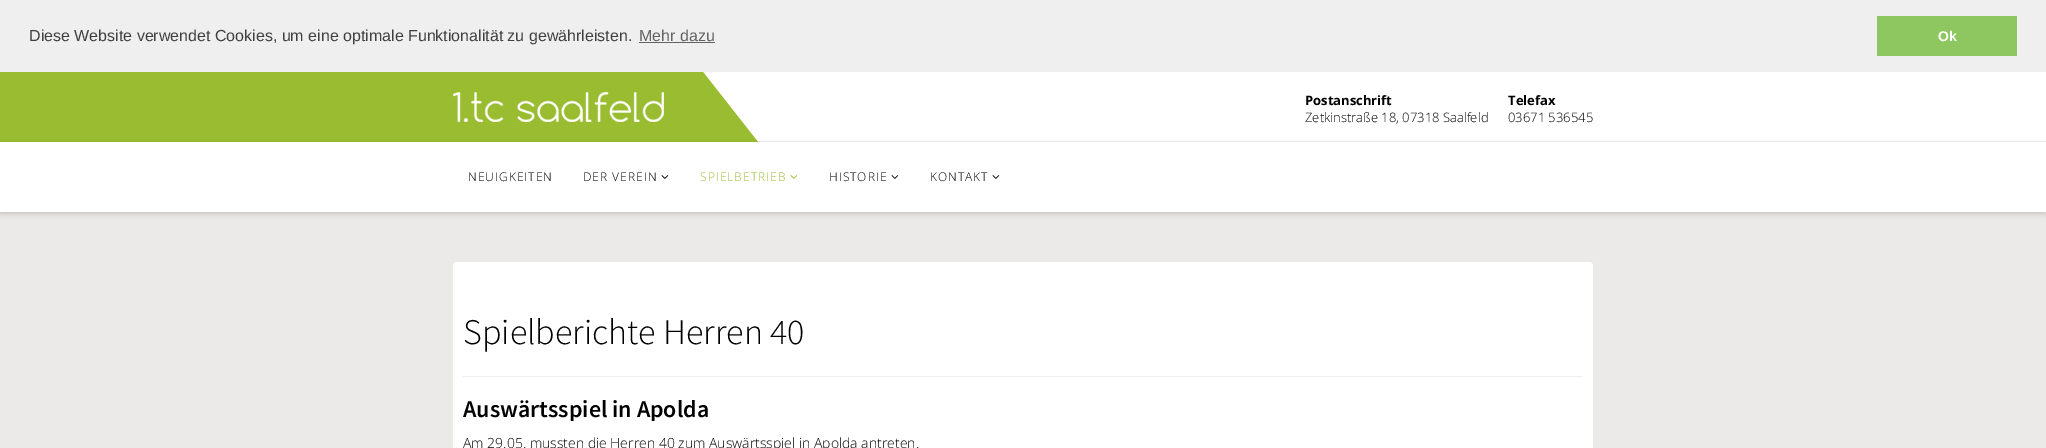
%!PS
<< /PageSize [2046 448] /PageUsesTransparency true >> setpagedevice
/rgb { 3 { 255 div 3 1 roll } repeat setrgbcolor } def
/font { [ exch dup neg 0 0 3 -1 roll 0 0 ] selectfont } def
/text { moveto show } def
/alpha { dup .setfillconstantalpha .setstrokeconstantalpha } def
/roundrect { 5 dict begin { /r /h /w /y /x } { exch def } forall
  x r add y moveto x w add y 2 copy h add r arct x w add y h add x 1 index r arct
  x y h add x y r arct x y 2 copy exch w add exch r arct closepath end } def
/shadow { 12 dict begin { /a /b /q /h /w /y /x } { exch def } forall gsave /was 0 def
  9 -2 -9 { dup b mul 4 div /e exch def 1 sub .425 mul 2.718 exch exp 1 add a .99 .min exch div /now exch def
    1 1 now sub 1 was sub div sub alpha /was now def
    w h .min e 2 mul add 0 gt { x e sub y e sub w e 2 mul add h e 2 mul add
      q e add b .6 mul add w h .min 2 div e add .min 0 .max roundrect fill } if } for grestore end } def
/picture { 5 dict begin { /h /w /y /x /name } { exch def } forall
  gsave x y translate w h scale
  w h 8 [w 0 0 h 0 0] name (r) file false 3 colorimage grestore end } def
0 .pushpdf14devicefilter
0 448 translate 1 -1 scale
4 setmiterlimit
255 255 255 rgb
0 0 2046 448 rectfill
239 239 239 rgb
0 0 2046 72 rectfill
99 99 99 rgb
639 42 76 1 rectfill
142 199 96 rgb
1877 16 140 40 rectfill
238 238 238 rgb
757 141 1289 1 rectfill
154 188 49 rgb
-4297 72 moveto 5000 0 rlineto 55 70 rlineto -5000 0 rlineto closepath fill
(img_01.rgb) 453 92 211 30 picture
235 234 232 rgb
0 212 2046 236 rectfill
gsave
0 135 moveto 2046 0 rlineto 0 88 rlineto -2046 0 rlineto closepath 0 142 moveto 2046 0 rlineto 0 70 rlineto -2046 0 rlineto closepath eoclip newpath
0 0 0 rgb
0 144 2046 70 0 2.5 0.15 shadow
grestore
(img_02.rgb) 661 175 8 4 picture
(img_03.rgb) 790 175 8 4 picture
(img_02.rgb) 891 175 8 4 picture
(img_02.rgb) 992 175 8 4 picture
255 255 255 rgb
453 262 1140 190 4 roundrect fill
238 238 238 rgb
463 376 1120 1 rectfill
/LiberationSans-Regular 16 font
64 64 64 rgb
(Diese Website verwendet Cookies, um eine optimale Funktionalität zu gewährleisten.) 29 41 text
99 99 99 rgb
(Mehr dazu) 639 41 text
/LiberationSans-Bold 14 font
255 255 255 rgb
(Ok) 1938 41 text
/OpenSans-Bold 13 font
0 0 0 rgb
(Postanschrift) 1305 105 text
/OpenSans-Light 13 font
(Zetkinstraße 18, 07318 Saalfeld) 1305 122 text
/OpenSans-Bold 13 font
(Telefax) 1508 105 text
/OpenSans-Light 13 font
(03671 536545) 1508 122 text
/OpenSans-Light 12 font
468 181 moveto 1 0 (NEUIGKEITEN) ashow
583 181 moveto 1 0 (DER VEREIN) ashow
154 188 49 rgb
700 181 moveto 1 0 (SPIELBETRIEB) ashow
0 0 0 rgb
829 181 moveto 1 0 (HISTORIE) ashow
930 181 moveto 1 0 (KONTAKT) ashow
/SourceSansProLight-Light 36 font
(Spielberichte Herren 40) 463 344 text
gsave
463 397 1120 24 rectclip
/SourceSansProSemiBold-SemiBold 24 font
(Auswärtsspiel in Apolda) 463 417 text
grestore
/OpenSans-Light 14 font
(Am 29.05. mussten die Herren 40 zum Auswärtsspiel in Apolda antreten.) 463 448 text
.poppdf14devicefilter showpage
